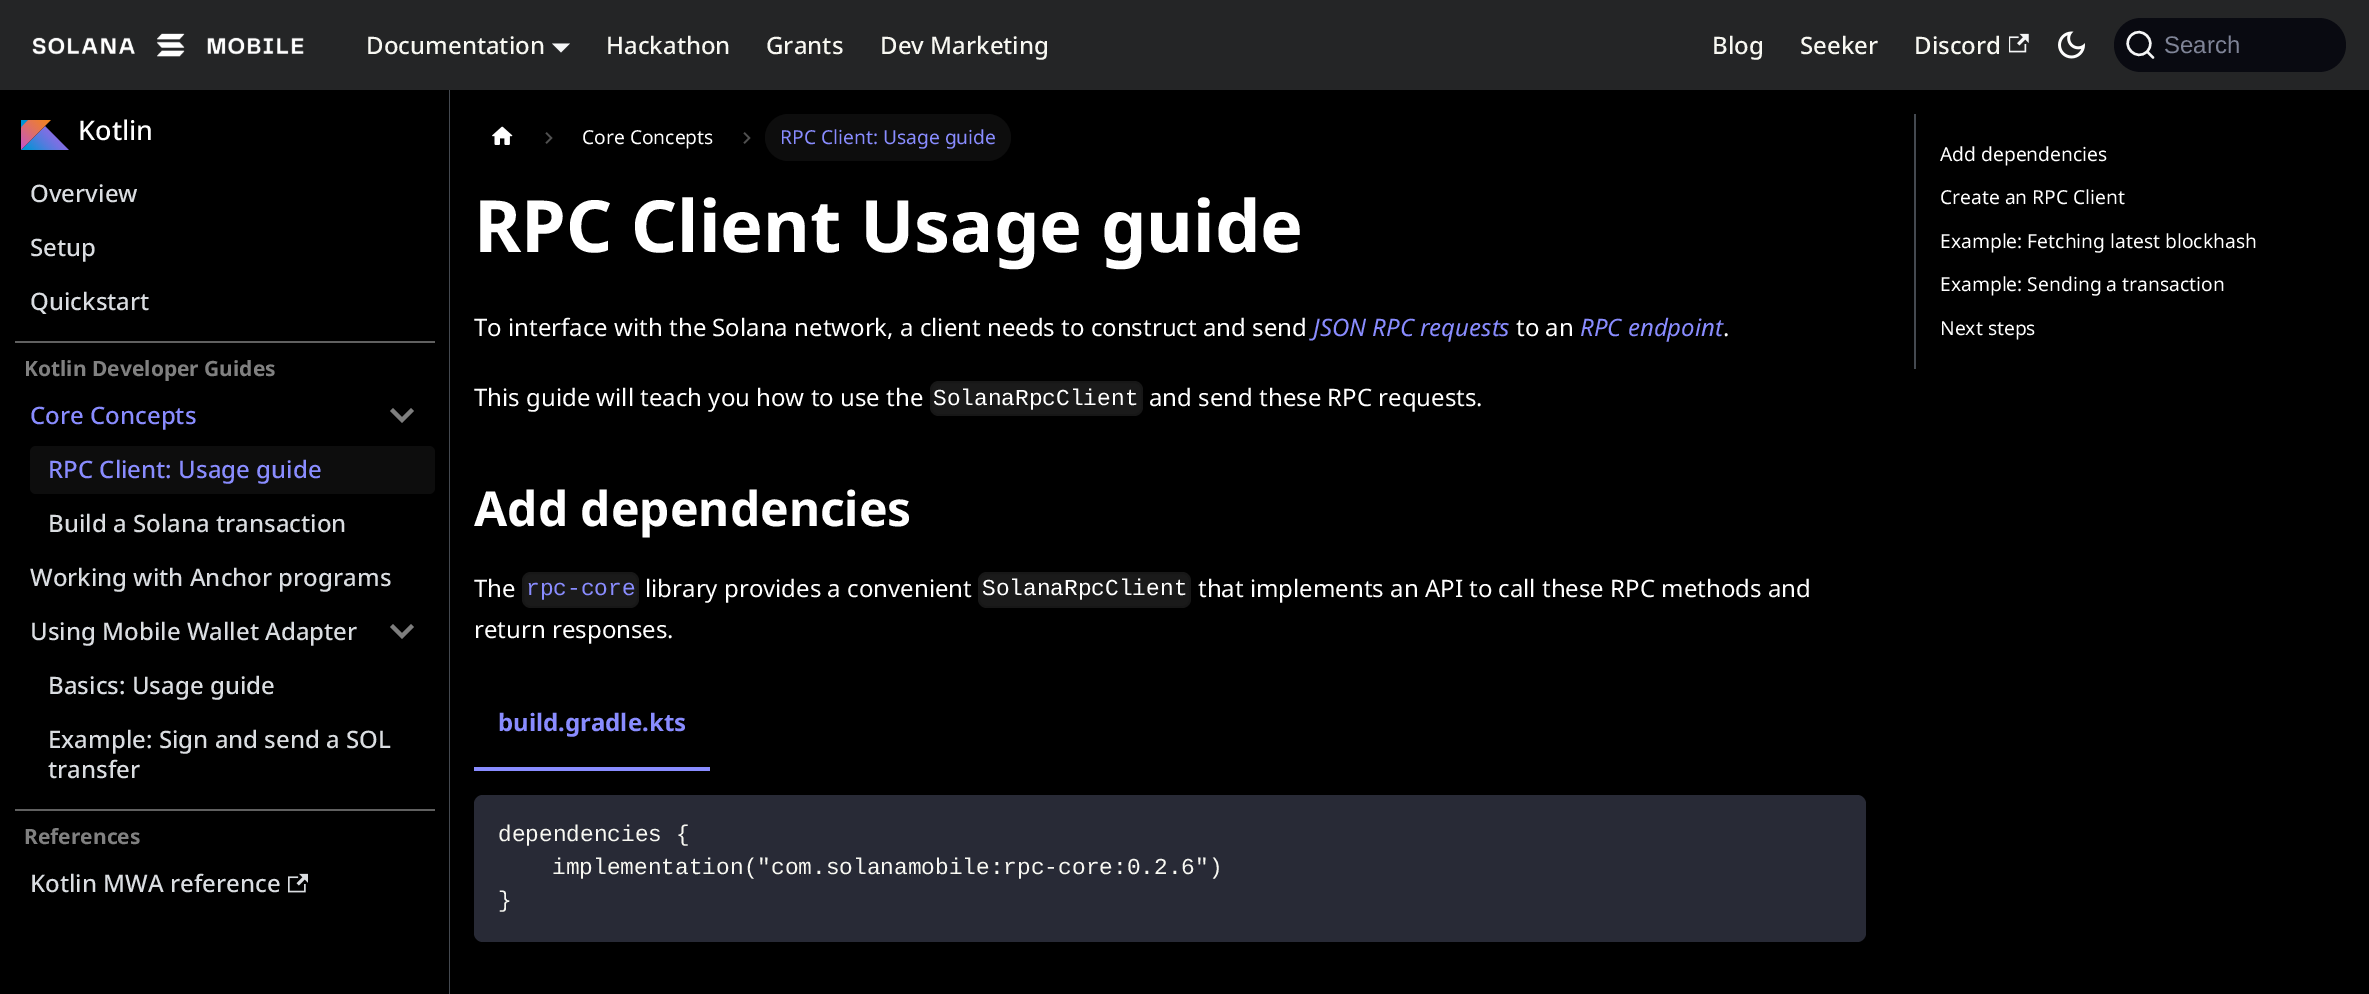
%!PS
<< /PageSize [2369 994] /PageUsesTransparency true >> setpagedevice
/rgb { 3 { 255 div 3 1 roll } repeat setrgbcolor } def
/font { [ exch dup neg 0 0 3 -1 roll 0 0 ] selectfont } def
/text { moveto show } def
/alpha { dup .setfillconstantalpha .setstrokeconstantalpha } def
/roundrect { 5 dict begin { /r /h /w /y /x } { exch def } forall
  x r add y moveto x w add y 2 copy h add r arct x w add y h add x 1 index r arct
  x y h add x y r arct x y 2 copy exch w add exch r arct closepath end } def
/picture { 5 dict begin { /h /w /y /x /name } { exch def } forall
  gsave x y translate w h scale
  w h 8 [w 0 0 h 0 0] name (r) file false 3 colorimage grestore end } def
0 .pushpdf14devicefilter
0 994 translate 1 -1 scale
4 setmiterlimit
0 0 0 rgb
0 0 2369 994 rectfill
36 37 38 rgb
0 0 2369 90 rectfill
(img_01.rgb) 32 33 272 24 picture
245 246 247 rgb
552 43.5 moveto 18 0 rlineto -9 9 rlineto closepath fill
(img_02.rgb) 2009 33 20 20 picture
(img_03.rgb) 2058 31 27 28 picture
9 10 17 rgb
2114 18 232 54 27 roundrect fill
245 246 247 rgb
2.4 setlinewidth
1 setlinecap
1 setlinejoin
2147 51.5 moveto 6 6 rlineto -6 -6 rlineto -10.5 10.5 -26.5 -5.5 -16 -16 rcurveto 10.5 -10.5 26.5 5.5 16 16 rcurveto closepath stroke
68 73 80 rgb
449 90 1 904 rectfill
(img_04.rgb) 21 120 48 30 picture
96 96 96 rgb
15 341 420 2 rectfill
126 126 126 rgb
411 408 moveto -9 9 rlineto -9 -9 rlineto -3 3 rlineto 12 12 rlineto 12 -12 rlineto closepath fill
13 13 13 rgb
30 446 405 48 6 roundrect fill
126 126 126 rgb
411 624 moveto -9 9 rlineto -9 -9 rlineto -3 3 rlineto 12 12 rlineto 12 -12 rlineto closepath fill
96 96 96 rgb
15 809 420 2 rectfill
(img_05.rgb) 288 873 20 20 picture
(img_06.rgb) 492 126 21 19 picture
(img_07.rgb) 545 132 8 12 picture
(img_07.rgb) 743 132 8 12 picture
13 13 13 rgb
765 114 246 47 23.5 roundrect fill
26 26 26 rgb
930 381 213 35 9 roundrect fill
0.1 alpha
0 0 0 rgb
2 setlinewidth
0 setlinecap
0 setlinejoin
931 382 211 33 8 roundrect stroke
1 alpha
26 26 26 rgb
522 572 117 36 9 roundrect fill
0.1 alpha
0 0 0 rgb
523 573 115 34 8 roundrect stroke
1 alpha
26 26 26 rgb
978 572 213 36 9 roundrect fill
0.1 alpha
0 0 0 rgb
979 573 211 34 8 roundrect stroke
1 alpha
137 140 255 rgb
474 767 236 4 rectfill
40 42 54 rgb
474 795 1392 147 9 roundrect fill
68 73 80 rgb
1914 114 2 255 rectfill
/NotoSans-Medium 24 font
248 248 242 rgb
(Documentation) 366 54 text
(Hackathon) 606 54 text
(Grants) 766 54 text
(Dev Marketing) 880 54 text
(Blog) 1712 54 text
(Seeker) 1800 54 text
(Discord) 1914 54 text
/LiberationSans-Regular 24 font
127 132 151 rgb
(Search) 2164 53 text
/NotoSans-Medium 27 font
255 255 255 rgb
(Kotlin) 78 140 text
/NotoSans-Medium 24 font
218 221 225 rgb
(Overview) 30 202 text
(Setup) 30 256 text
(Quickstart) 30 310 text
/NotoSans-Bold 21 font
128 128 128 rgb
(Kotlin Developer Guides) 24 376 text
/NotoSans-Medium 24 font
137 140 255 rgb
(Core Concepts) 30 424 text
(RPC Client: Usage guide) 48 478 text
218 221 225 rgb
(Build a Solana transaction) 48 532 text
(Working with Anchor programs) 30 586 text
(Using Mobile Wallet Adapter) 30 640 text
(Basics: Usage guide) 48 694 text
(Example: Sign and send a SOL) 48 748 text
(transfer) 48 778 text
/NotoSans-Bold 21 font
128 128 128 rgb
(References) 24 844 text
/NotoSans-Medium 24 font
218 221 225 rgb
(Kotlin MWA reference) 30 892 text
/NotoSans-Regular 19.25 font
255 255 255 rgb
(Core Concepts) 582 144 text
137 140 255 rgb
(RPC Client: Usage guide) 780 144 text
/NotoSans-Bold 72 font
255 255 255 rgb
(RPC Client Usage guide) 474 252 text
/NotoSans-Regular 24 font
(To interface with the Solana network, a client needs to construct and send) 474 336 text
/NotoSans-Italic 24 font
137 140 255 rgb
(JSON RPC requests) 1313 336 text
/NotoSans-Regular 24 font
255 255 255 rgb
(to an) 1516 336 text
/NotoSans-Italic 24 font
137 140 255 rgb
(RPC endpoint) 1580 336 text
/NotoSans-Regular 24 font
255 255 255 rgb
(.) 1723 336 text
(This guide will teach you how to use the) 474 406 text
/LiberationMono-Regular 22.8 font
(SolanaRpcClient) 933 405 text
/NotoSans-Regular 24 font
(and send these RPC requests.) 1149 406 text
/NotoSans-Bold 48 font
(Add dependencies) 474 526 text
/NotoSans-Regular 24 font
(The) 474 597 text
/LiberationMono-Regular 22.8 font
137 140 255 rgb
(rpc-core) 526 595 text
/NotoSans-Regular 24 font
255 255 255 rgb
(library provides a convenient) 645 597 text
/LiberationMono-Regular 22.8 font
(SolanaRpcClient) 982 595 text
/NotoSans-Regular 24 font
(that implements an API to call these RPC methods and) 1198 597 text
(return responses.) 474 638 text
/NotoSans-Bold 24 font
137 140 255 rgb
(build.gradle.kts) 498 731 text
/LiberationMono-Regular 22.8 font
248 248 242 rgb
(dependencies {) 498 841 text
(implementation\("com.solanamobile:rpc-core:0.2.6"\)) 552 874 text
(}) 498 907 text
/NotoSans-Regular 19.25 font
255 255 255 rgb
(Add dependencies) 1940 161 text
(Create an RPC Client) 1940 204 text
(Example: Fetching latest blockhash) 1940 248 text
(Example: Sending a transaction) 1940 291 text
(Next steps) 1940 335 text
.poppdf14devicefilter showpage
